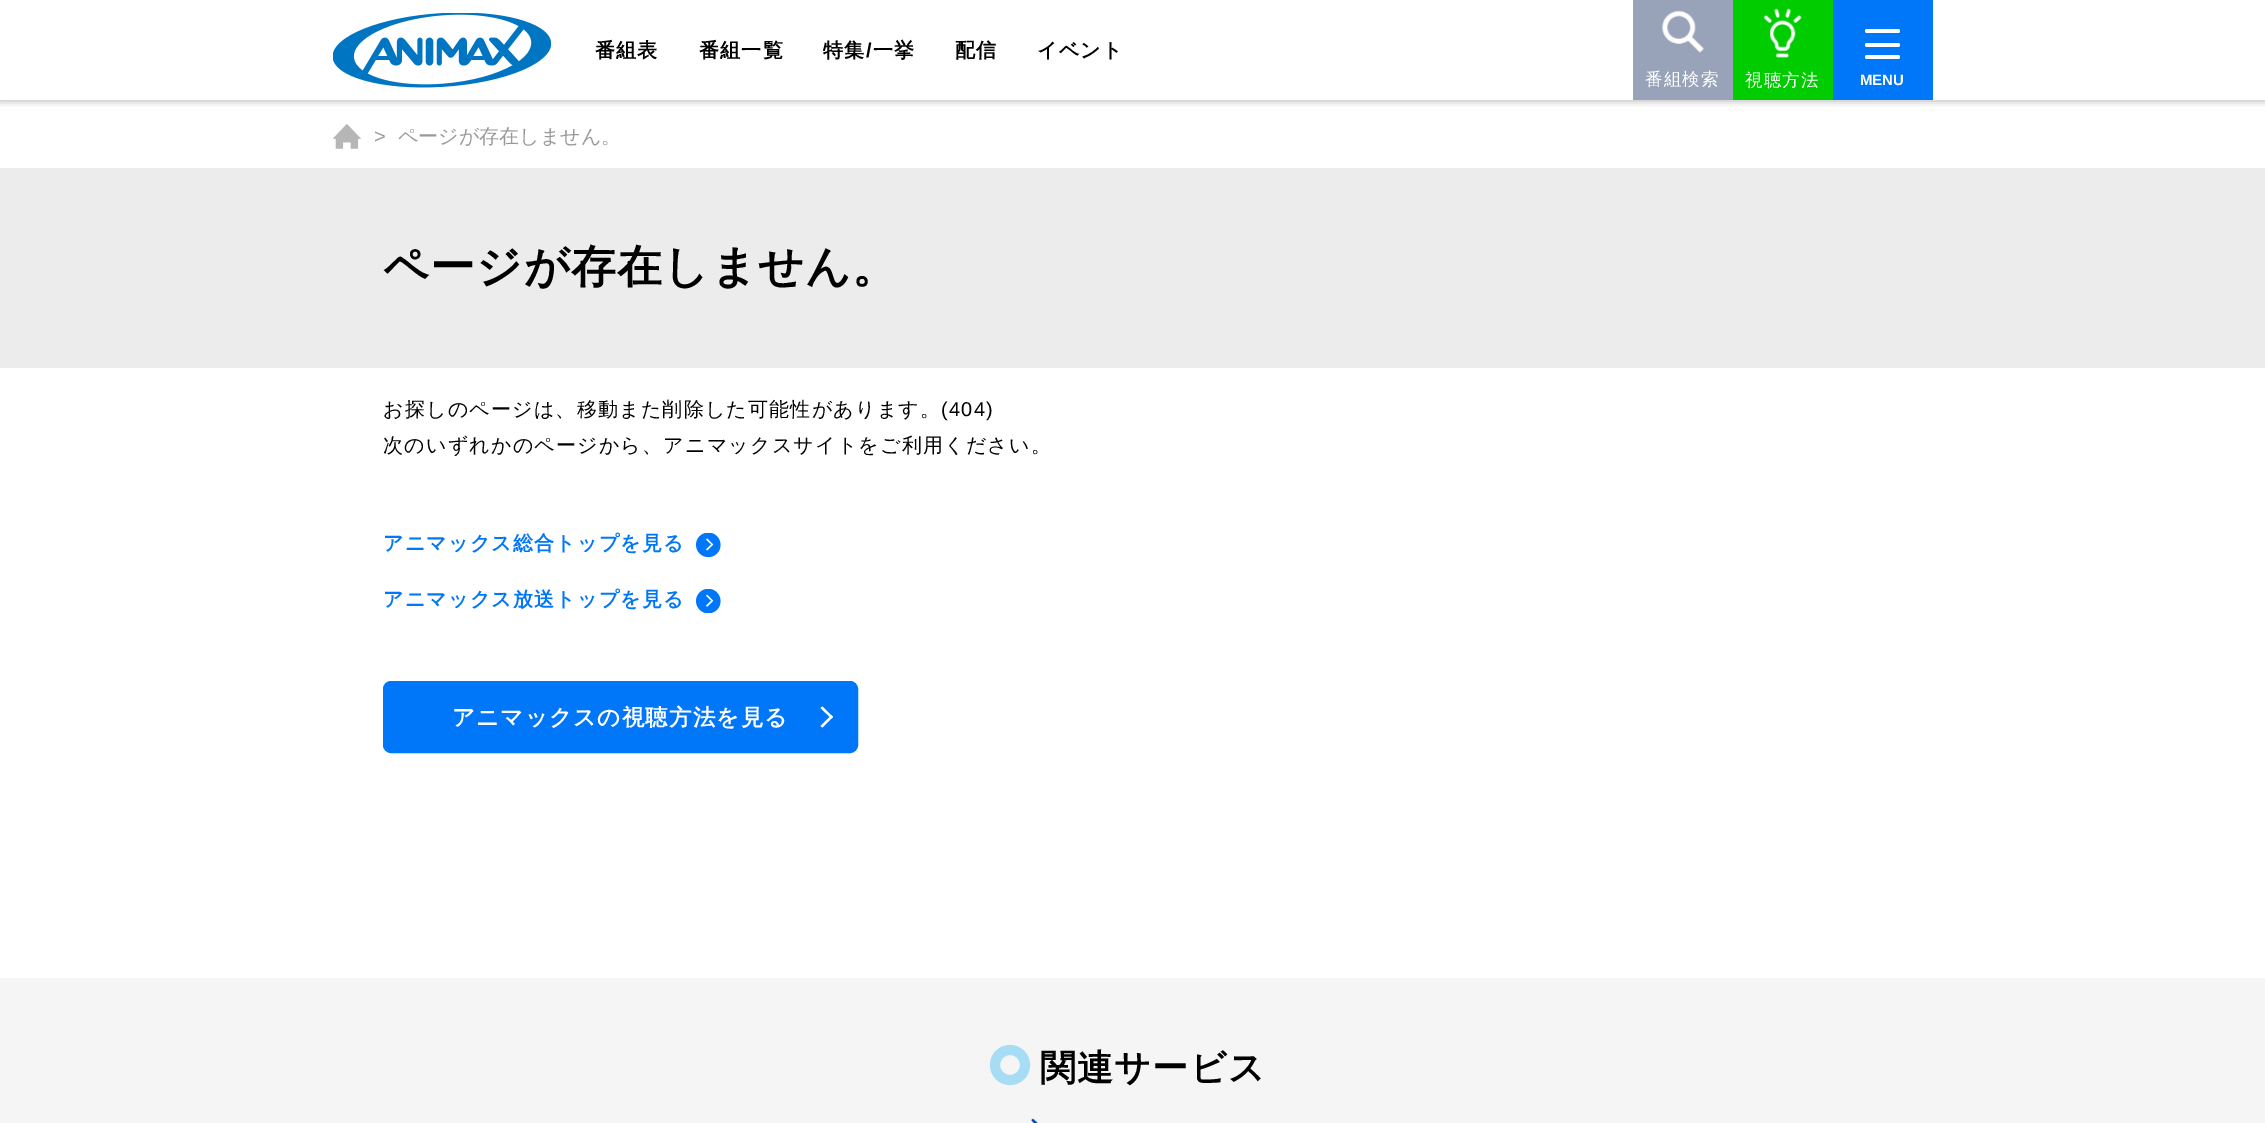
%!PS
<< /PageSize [2265 1123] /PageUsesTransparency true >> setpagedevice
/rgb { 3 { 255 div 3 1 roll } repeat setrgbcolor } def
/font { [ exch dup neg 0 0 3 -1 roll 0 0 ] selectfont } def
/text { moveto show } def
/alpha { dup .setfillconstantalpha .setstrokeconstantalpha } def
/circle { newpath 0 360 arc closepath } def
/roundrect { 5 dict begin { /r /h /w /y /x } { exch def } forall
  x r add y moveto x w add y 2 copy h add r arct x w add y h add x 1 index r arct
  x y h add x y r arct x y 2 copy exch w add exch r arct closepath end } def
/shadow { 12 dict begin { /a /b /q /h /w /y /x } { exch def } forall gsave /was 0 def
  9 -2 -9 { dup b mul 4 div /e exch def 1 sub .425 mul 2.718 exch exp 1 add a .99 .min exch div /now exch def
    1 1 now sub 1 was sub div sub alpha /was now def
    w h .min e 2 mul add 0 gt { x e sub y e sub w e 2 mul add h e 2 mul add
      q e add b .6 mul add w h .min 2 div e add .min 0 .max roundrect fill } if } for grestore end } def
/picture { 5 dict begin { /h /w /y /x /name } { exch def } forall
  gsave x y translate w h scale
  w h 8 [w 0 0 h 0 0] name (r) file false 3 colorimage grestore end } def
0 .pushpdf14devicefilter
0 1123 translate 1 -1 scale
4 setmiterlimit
255 255 255 rgb
0 0 2265 1123 rectfill
gsave
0 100 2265 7 rectclip
0 0 0 rgb
0 1 2265 100 0 4 0.3 shadow
grestore
(img_01.rgb) 333 13 218 75 picture
152 163 185 rgb
1633 0 100 100 rectfill
(img_02.rgb) 1662 10 43 43 picture
0 204 0 rgb
1733 0 100 100 rectfill
(img_03.rgb) 1763 8 39 50 picture
0 119 249 rgb
1833 0 100 100 rectfill
255 255 255 rgb
1865 29 35 4 2 roundrect fill
1865 43 35 4 2 roundrect fill
1865 55 35 4 2 roundrect fill
(img_04.rgb) 333 124 28 25 picture
236 236 236 rgb
0 168 2265 200 rectfill
(img_05.rgb) 695 533 26 25 picture
(img_06.rgb) 695 589 26 24 picture
0 118 248 rgb
384.5 682.5 472 69 6.5 roundrect gsave fill grestore
3 setlinewidth
stroke
255 255 255 rgb
822.5 706.5 moveto 10.5 10.5 rlineto -1.5 1.5 rlineto -11 -10.5 rlineto closepath fill
831.5 715 moveto 1.5 2 rlineto -10.5 10.5 rlineto -2 -1.5 rlineto closepath fill
245 245 245 rgb
0 978 2265 145 rectfill
166 221 245 rgb
10 setlinewidth
1010 1065 15 circle stroke
(img_07.rgb) 1031 1118 7 5 picture
/WenQuanYiZenHei-Bold 20 font
0 0 0 rgb
595 57 moveto 1.2 0 (番組表) ashow
699 57 moveto 1.2 0 (番組一覧) ashow
823 57 moveto 1.2 0 (特集) ashow
/LiberationSans-Bold 20 font
866 57 moveto 1.2 0 (/) ashow
/WenQuanYiZenHei-Bold 20 font
873 57 moveto 1.2 0 (一挙) ashow
955 57 moveto 1.2 0 (配信) ashow
1037 57 moveto 1.2 0 (イベント) ashow
/WenQuanYiZenHei-Medium 17.5 font
255 255 255 rgb
1645 85 moveto 1.2 0 (番組検索) ashow
1745 86 moveto 1.2 0 (視聴方法) ashow
/LiberationSans-Bold 15 font
(MENU) 1860 85 text
/LiberationSans-Regular 20 font
153 153 153 rgb
(>) 374 143 text
/WenQuanYiZenHei-Medium 20 font
(ページが存在しません。) 398 143 text
/WenQuanYiZenHei-Bold 45 font
0 0 0 rgb
383 282 moveto 1.2 0 (ページが存在しません。) ashow
/WenQuanYiZenHei-Medium 20 font
383 416 moveto 1.2 0 (お探しのページは、移動また削除した可能性があります。) ashow
/LiberationSans-Regular 20 font
941 416 moveto 1.2 0 (\(404\)) ashow
/WenQuanYiZenHei-Medium 20 font
383 452 moveto 1.2 0 (次のいずれかのページから、アニマックスサイトをご利用ください。) ashow
/WenQuanYiZenHei-Bold 20 font
0 118 248 rgb
383 550 moveto 1.2 0 (アニマックス総合トップを見る) ashow
383 606 moveto 1.2 0 (アニマックス放送トップを見る) ashow
/WenQuanYiZenHei-Bold 22.5 font
255 255 255 rgb
452 725 moveto 1.2 0 (アニマックスの視聴方法を見る) ashow
/WenQuanYiZenHei-Bold 36 font
0 0 0 rgb
1040 1080 moveto 1.2 0 (関連サービス) ashow
.poppdf14devicefilter showpage
